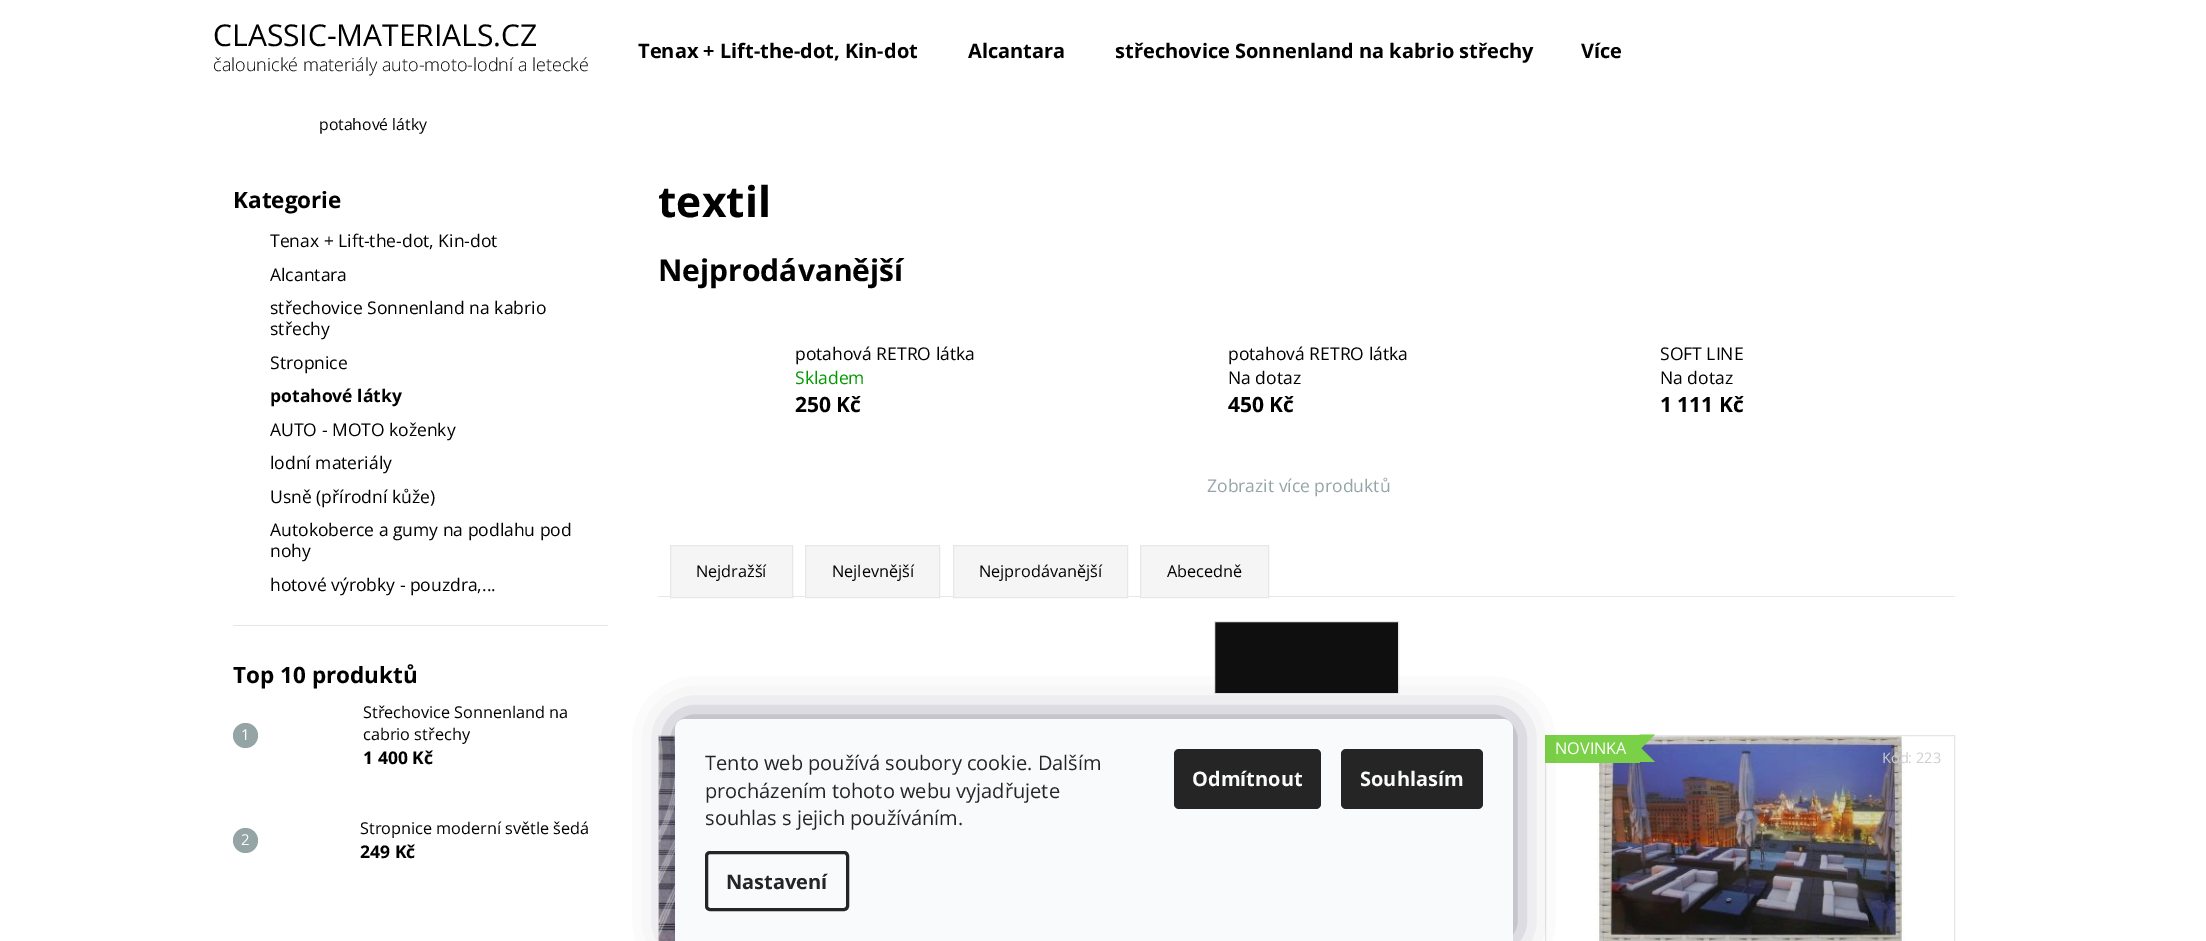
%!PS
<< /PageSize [2206 941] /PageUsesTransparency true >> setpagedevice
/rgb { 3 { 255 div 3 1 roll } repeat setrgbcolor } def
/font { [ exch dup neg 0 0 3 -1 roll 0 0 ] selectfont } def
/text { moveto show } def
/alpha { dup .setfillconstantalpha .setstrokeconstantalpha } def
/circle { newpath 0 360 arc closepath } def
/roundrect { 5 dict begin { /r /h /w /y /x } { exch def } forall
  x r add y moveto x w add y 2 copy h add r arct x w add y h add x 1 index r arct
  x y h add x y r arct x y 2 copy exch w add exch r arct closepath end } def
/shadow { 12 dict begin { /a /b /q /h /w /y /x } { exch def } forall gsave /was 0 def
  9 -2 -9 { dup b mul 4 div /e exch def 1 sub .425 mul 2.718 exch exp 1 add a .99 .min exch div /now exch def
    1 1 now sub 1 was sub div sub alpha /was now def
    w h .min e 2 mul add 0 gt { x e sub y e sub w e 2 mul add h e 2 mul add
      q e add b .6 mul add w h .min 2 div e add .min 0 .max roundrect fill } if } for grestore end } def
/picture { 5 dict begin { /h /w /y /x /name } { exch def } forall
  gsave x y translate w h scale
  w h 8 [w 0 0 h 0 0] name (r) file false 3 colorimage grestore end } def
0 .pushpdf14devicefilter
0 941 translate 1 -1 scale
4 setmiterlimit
255 255 255 rgb
0 0 2206 941 rectfill
230 230 230 rgb
233 625 375 1 rectfill
149 165 166 rgb
245.5 735.5 12.5 circle fill
245.5 840.5 12.5 circle fill
231 231 231 rgb
658 596 1297 1 rectfill
245 245 245 rgb
670.5 545.5 moveto 122 0 rlineto 0 52 rlineto -122 0 rlineto closepath gsave fill grestore
231 231 231 rgb
stroke
245 245 245 rgb
805.5 545.5 moveto 134 0 rlineto 0 52 rlineto -134 0 rlineto closepath gsave fill grestore
231 231 231 rgb
stroke
245 245 245 rgb
953.5 545.5 moveto 174 0 rlineto 0 52 rlineto -174 0 rlineto closepath gsave fill grestore
231 231 231 rgb
stroke
245 245 245 rgb
1140.5 545.5 moveto 128 0 rlineto 0 52 rlineto -128 0 rlineto closepath gsave fill grestore
231 231 231 rgb
stroke
15 15 15 rgb
1214.5 621.5 moveto 184 0 rlineto 0 72 rlineto -184 0 rlineto closepath gsave fill grestore
230 230 230 rgb
stroke
658.5 735.5 409 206 rectstroke
(img_01.rgb) 658 736 17 205 picture
1545.5 735.5 409 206 rectstroke
(img_02.rgb) 1594 736 311 205 picture
122 208 70 rgb
1545 735 95 28 rectfill
27 25 57 rgb
675 719 838 222 10 19 0.5 shadow
248 250 251 rgb
685 719 moveto 818 0 rlineto 5.5 0 10 4.5 10 10 rcurveto 0 212 rlineto -838 0 rlineto 0 -212 rlineto 0 -5.5 4.5 -10 10 -10 rcurveto closepath fill
37 37 37 rgb
3 setlinewidth
706.5 852.5 141 57 3.5 roundrect stroke
1174 749 147 60 5 roundrect fill
1341 749 142 60 5 roundrect fill
/OpenSans-Regular 30 font
0 0 0 rgb
(CLASSIC-MATERIALS.CZ) 213 46 text
/OpenSans-Light 18 font
(čalounické materiály auto-moto-lodní a letecké) 213 71 text
/OpenSans-Bold 20 font
(Tenax + Lift-the-dot, Kin-dot) 638 58 text
(Alcantara) 968 58 text
(střechovice Sonnenland na kabrio střechy) 1115 58 text
(Více) 1581 58 text
/OpenSans-Regular 15.75 font
(potahové látky) 319 130 text
/OpenSans-Bold 22.5 font
(Kategorie) 233 208 text
/OpenSans-Regular 17.5 font
(Tenax + Lift-the-dot, Kin-dot) 270 247 text
(Alcantara) 270 281 text
(střechovice Sonnenland na kabrio) 270 314 text
(střechy) 270 335 text
(Stropnice) 270 369 text
/OpenSans-Bold 17.5 font
(potahové látky) 270 402 text
/OpenSans-Regular 17.5 font
(AUTO - MOTO koženky) 270 436 text
(lodní materiály) 270 469 text
(Usně \(přírodní kůže\)) 270 503 text
(Autokoberce a gumy na podlahu pod) 270 536 text
(nohy) 270 557 text
(hotové výrobky - pouzdra,...) 270 591 text
/OpenSans-Bold 22.5 font
(Top 10 produktů) 233 683 text
/OpenSans-Regular 15 font
255 255 255 rgb
(1) 241 740 text
/OpenSans-Regular 16.25 font
0 0 0 rgb
(Střechovice Sonnenland na) 363 718 text
(cabrio střechy) 363 740 text
/OpenSans-Bold 17.5 font
(1 400 Kč) 363 764 text
/OpenSans-Regular 15 font
255 255 255 rgb
(2) 241 845 text
/OpenSans-Regular 16.25 font
0 0 0 rgb
(Stropnice moderní světle šedá) 360 834 text
/OpenSans-Bold 17.5 font
(249 Kč) 360 858 text
/OpenSans-Bold 42.5 font
(textil) 658 217 text
/OpenSans-Bold 30 font
(Nejprodávanější) 658 281 text
/OpenSans-Regular 17.5 font
(potahová RETRO látka) 795 360 text
0 153 1 rgb
(Skladem) 795 384 text
/OpenSans-Bold 21 font
0 0 0 rgb
(250 Kč) 795 412 text
/OpenSans-Regular 17.5 font
(potahová RETRO látka) 1228 360 text
(Na dotaz) 1228 384 text
/OpenSans-Bold 21 font
(450 Kč) 1228 412 text
/OpenSans-Regular 17.5 font
(SOFT LINE) 1660 360 text
(Na dotaz) 1660 384 text
/OpenSans-Bold 21 font
(1 111 Kč) 1660 412 text
/OpenSans-Regular 17.5 font
149 165 166 rgb
(Zobrazit více produktů) 1207 492 text
/OpenSans-Regular 16.25 font
0 0 0 rgb
(Nejdražší) 696 577 text
(Nejlevnější) 832 577 text
(Nejprodávanější) 979 577 text
(Abecedně) 1167 577 text
255 255 255 rgb
(NOVINKA) 1555 754 text
122 208 70 rgb
1625 747 moveto 15 0 rlineto 15 15 rlineto -15 0 rlineto closepath fill
1640 734.5 moveto 15 0 rlineto -15 15 rlineto -15 0 rlineto closepath fill
/OpenSans-Regular 14.5 font
207 207 207 rgb
(Kód: 223) 1882 763 text
/OpenSans-Regular 20 font
37 37 37 rgb
(Tento web používá soubory cookie. Dalším) 705 770 text
(procházením tohoto webu vyjadřujete) 705 798 text
(souhlas s jejich používáním.) 705 825 text
/OpenSans-Bold 20 font
(Nastavení) 726 889 text
248 250 251 rgb
(Odmítnout) 1192 786 text
(Souhlasím) 1360 786 text
.poppdf14devicefilter showpage
